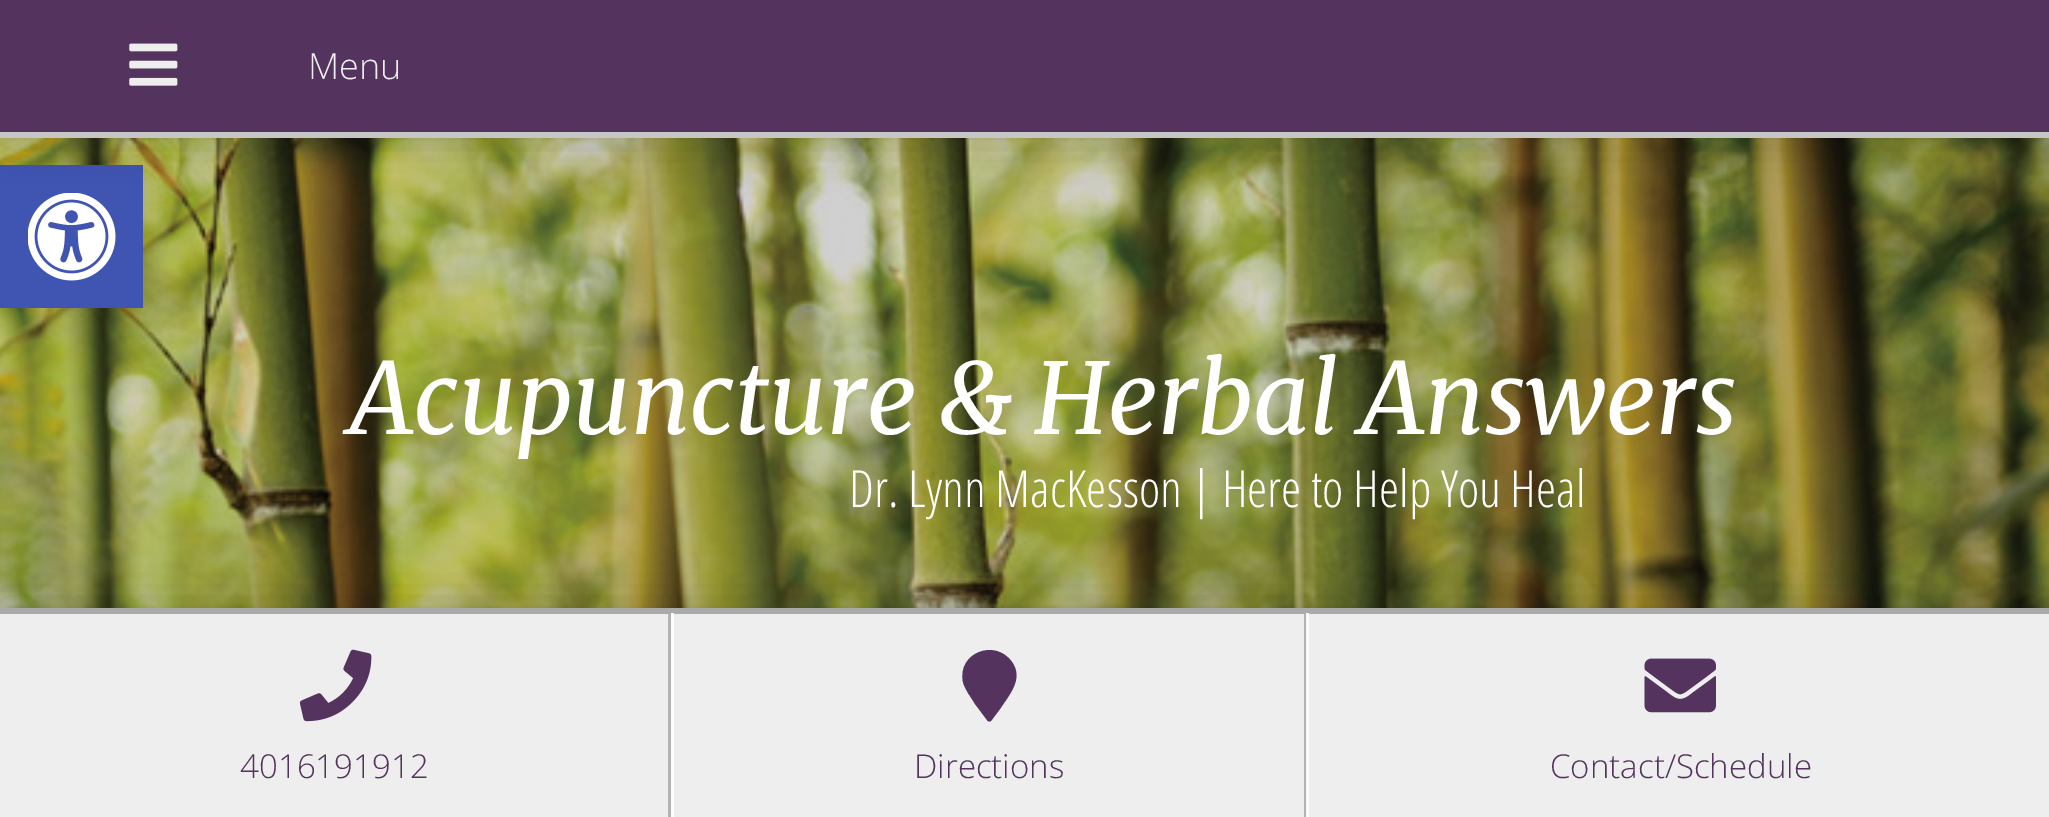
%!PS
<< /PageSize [2049 817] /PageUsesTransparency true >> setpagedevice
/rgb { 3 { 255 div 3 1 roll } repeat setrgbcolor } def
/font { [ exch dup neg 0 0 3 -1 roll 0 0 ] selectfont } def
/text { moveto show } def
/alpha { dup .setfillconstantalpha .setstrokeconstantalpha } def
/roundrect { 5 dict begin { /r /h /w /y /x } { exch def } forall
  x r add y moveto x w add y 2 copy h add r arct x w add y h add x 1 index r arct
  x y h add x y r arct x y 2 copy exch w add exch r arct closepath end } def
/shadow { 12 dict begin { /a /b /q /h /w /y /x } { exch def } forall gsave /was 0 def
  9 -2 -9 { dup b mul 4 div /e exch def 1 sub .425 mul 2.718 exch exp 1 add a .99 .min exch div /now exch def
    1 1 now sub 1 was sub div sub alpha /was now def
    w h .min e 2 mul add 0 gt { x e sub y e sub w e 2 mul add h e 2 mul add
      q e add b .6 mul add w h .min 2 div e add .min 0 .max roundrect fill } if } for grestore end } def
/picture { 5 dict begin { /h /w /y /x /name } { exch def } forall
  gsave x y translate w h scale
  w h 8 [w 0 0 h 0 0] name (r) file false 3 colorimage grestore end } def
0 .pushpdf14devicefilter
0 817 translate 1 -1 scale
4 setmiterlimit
255 255 255 rgb
0 0 2049 817 rectfill
(img_03.rgb) 0 138 2049 470 picture
0 0 0 rgb
0 165 143 143 0 14 0.1 shadow
64 84 178 rgb
0 165 143 143 rectfill
(img_01.rgb) 28 193 88 88 picture
0 0 0 rgb
0 8 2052 138 0 22 0.15 shadow
84 51 94 rgb
0 0 2049 132 rectfill
198 198 198 rgb
0 132 2049 6 rectfill
(img_02.rgb) 129 43 49 43 picture
0 0 0 rgb
0 600 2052 211 0 22 0.15 shadow
238 238 238 rgb
0 614 2049 203 rectfill
170 170 170 rgb
0 608 2049 6 rectfill
0.87 alpha
668 613 3 204 rectfill
1 alpha
(img_04.rgb) 299 649 73 73 picture
0.87 alpha
1304 613 3 204 rectfill
255 255 255 rgb
671 613 3 204 rectfill
1 alpha
84 51 94 rgb
987 720 moveto -12 -16 rlineto -4 -7 -10 -14 -12 -22 rcurveto -6 -29 32 -44 49 -20 rcurveto 12 17 -3 33 -12 47 rcurveto -9 12 rlineto -2 1 -4 0 -4 -1 rcurveto closepath fill
0.87 alpha
255 255 255 rgb
1306 613 3 204 rectfill
1 alpha
(img_05.rgb) 1644 658 72 55 picture
/OpenSans-Light 36 font
238 238 238 rgb
(Menu) 308 79 text
/Merriweather-Italic 98.25 font
255 255 255 rgb
(Acupuncture & Herbal Answers) 349 434 text
/OpenSansCondensed-Light 51.25 font
(Dr. Lynn MacKesson | Here to Help You Heal) 849 507 text
/OpenSans-Light 33 font
84 51 94 rgb
(4016191912) 240 778 text
(Directions) 914 778 text
(Contact/Schedule) 1550 778 text
.poppdf14devicefilter showpage
